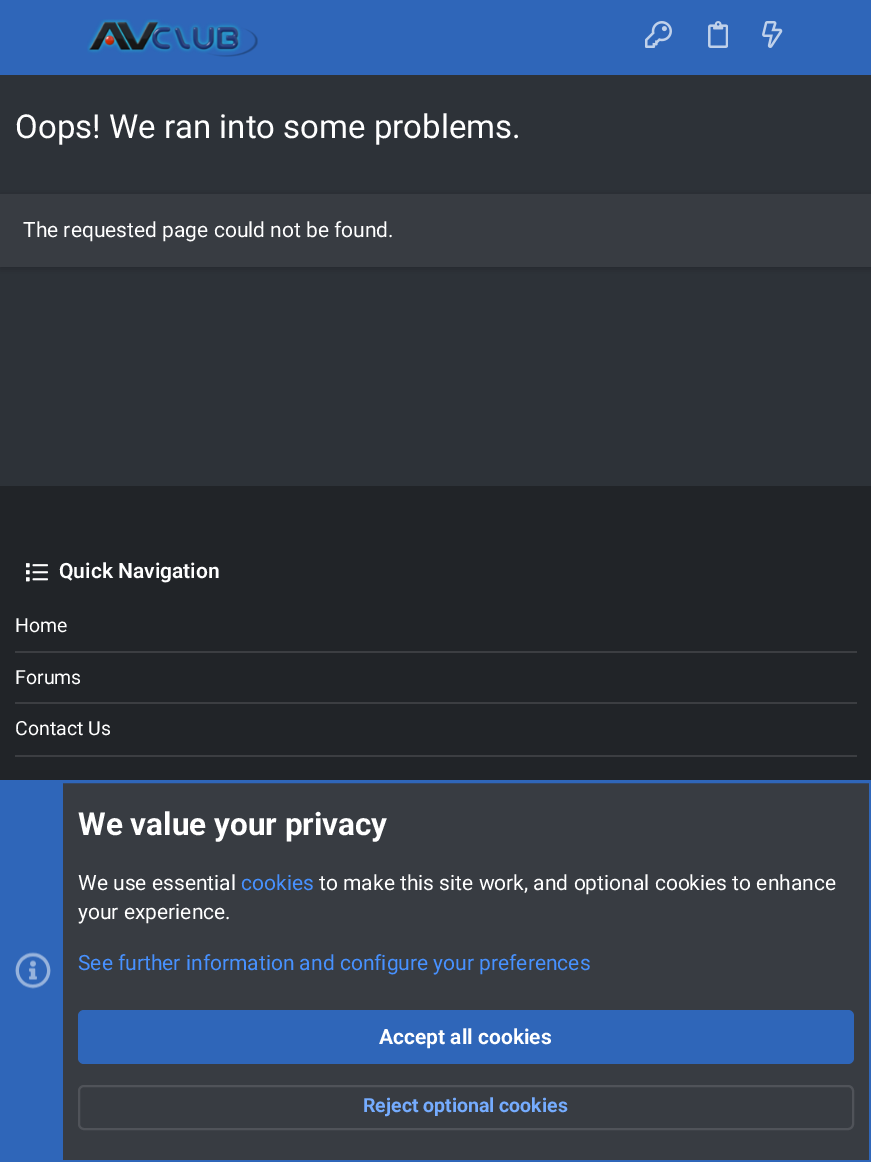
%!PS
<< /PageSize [871 1162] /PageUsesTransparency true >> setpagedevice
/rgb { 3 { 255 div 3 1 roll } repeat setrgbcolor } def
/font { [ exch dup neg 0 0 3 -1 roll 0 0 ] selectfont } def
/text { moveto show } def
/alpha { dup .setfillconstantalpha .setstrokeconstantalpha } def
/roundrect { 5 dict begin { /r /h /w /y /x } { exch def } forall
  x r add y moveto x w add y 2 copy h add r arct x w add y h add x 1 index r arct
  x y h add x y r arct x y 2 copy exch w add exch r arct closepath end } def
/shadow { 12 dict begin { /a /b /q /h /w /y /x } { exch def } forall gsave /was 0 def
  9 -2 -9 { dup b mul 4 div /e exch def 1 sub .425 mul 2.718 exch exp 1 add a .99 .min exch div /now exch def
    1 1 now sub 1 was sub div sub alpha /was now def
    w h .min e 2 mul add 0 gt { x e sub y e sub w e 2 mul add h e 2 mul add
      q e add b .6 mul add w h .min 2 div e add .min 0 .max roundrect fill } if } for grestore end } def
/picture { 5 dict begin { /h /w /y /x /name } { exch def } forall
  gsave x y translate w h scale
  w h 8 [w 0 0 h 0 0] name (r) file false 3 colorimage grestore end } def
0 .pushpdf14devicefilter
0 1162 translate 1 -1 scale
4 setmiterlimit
45 50 56 rgb
0 0 871 1162 rectfill
47 102 185 rgb
0 0 871 75 rectfill
(img_01.rgb) 87 19 171 38 picture
(img_02.rgb) 645 21 27 27 picture
(img_03.rgb) 708 21 20 27 picture
(img_04.rgb) 762 21 21 27 picture
0 0 0 rgb
0 195 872 74 0 4 0.2 shadow
56 60 66 rgb
0 194 871 73 rectfill
33 36 40 rgb
0 486 871 294 rectfill
(img_05.rgb) 26 563 22 19 picture
60 62 66 rgb
15 651 842 2 rectfill
15 702 842 2 rectfill
15 755 842 2 rectfill
56 60 66 rgb
63 783 806 377 rectfill
47 102 185 rgb
3 setlinewidth
1.5 781.5 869 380 rectstroke
3 783 60 377 rectfill
(img_06.rgb) 15 952 36 37 picture
78 1010 776 54 6 roundrect fill
80 83 89 rgb
2 setlinewidth
79 1086 774 43 5 roundrect stroke
/Roboto-Regular 33 font
255 255 255 rgb
(Oops! We ran into some problems.) 15 138 text
/Roboto-Regular 21 font
(The requested page could not be found.) 23 237 text
/Roboto-SemiBold 21 font
(Quick Navigation) 59 578 text
/Roboto-Regular 19.5 font
(Home) 15 632 text
(Forums) 15 684 text
(Contact Us) 15 735 text
/Roboto-Bold 31.5 font
(We value your privacy) 78 835 text
/Roboto-Regular 21 font
(We use essential) 78 890 text
71 145 255 rgb
(cookies) 241 890 text
255 255 255 rgb
(to make this site work, and optional cookies to enhance) 319 890 text
(your experience.) 78 919 text
71 145 255 rgb
(See further information and configure your preferences) 78 970 text
/Roboto-Bold 21 font
255 255 255 rgb
(Accept all cookies) 379 1044 text
/Roboto-Bold 19.5 font
117 172 255 rgb
(Reject optional cookies) 363 1112 text
.poppdf14devicefilter showpage
